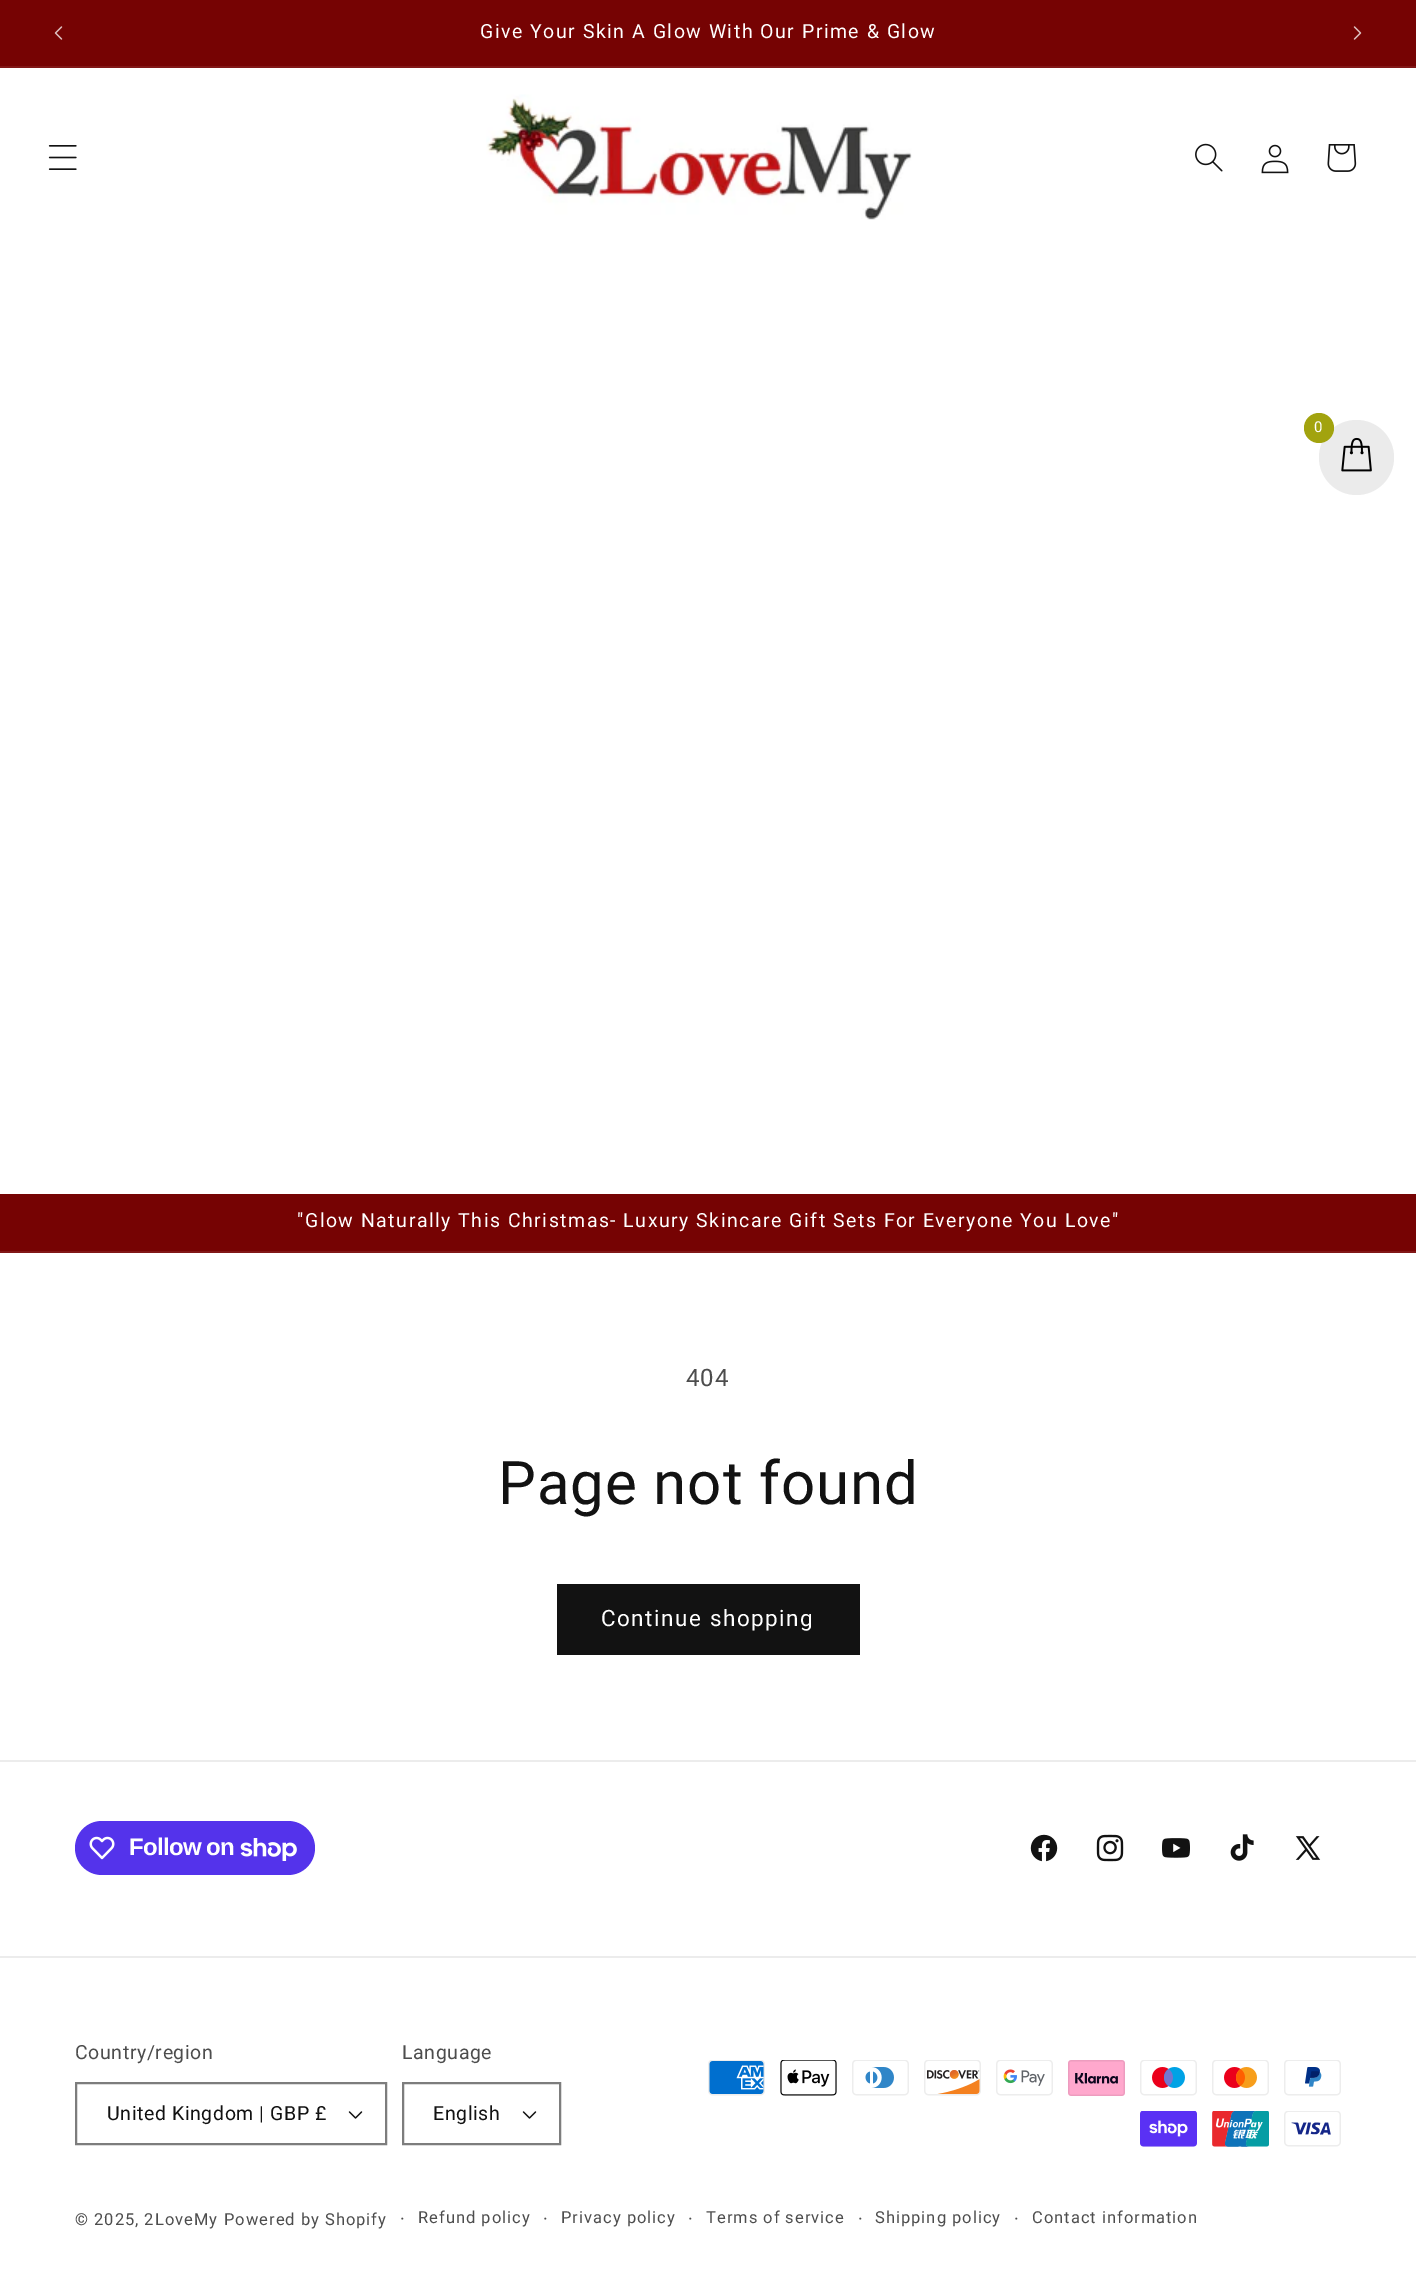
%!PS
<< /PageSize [1416 2289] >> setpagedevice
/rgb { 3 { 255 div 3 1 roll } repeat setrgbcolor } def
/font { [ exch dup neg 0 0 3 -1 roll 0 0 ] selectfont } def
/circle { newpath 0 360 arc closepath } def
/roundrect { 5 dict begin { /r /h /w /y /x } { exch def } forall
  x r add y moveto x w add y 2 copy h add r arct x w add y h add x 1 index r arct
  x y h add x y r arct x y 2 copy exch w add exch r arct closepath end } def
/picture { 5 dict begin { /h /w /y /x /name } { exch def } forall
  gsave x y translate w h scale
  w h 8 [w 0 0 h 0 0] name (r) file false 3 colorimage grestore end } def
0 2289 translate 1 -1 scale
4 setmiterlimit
255 255 255 rgb
0 0 1416 2289 rectfill
118 3 3 rgb
0 0 1416 66 rectfill
129 23 23 rgb
0 66 1416 2 rectfill
(img_01.rgb) 54 26 9 14 picture
(img_02.rgb) 1353 26 9 14 picture
(img_03.rgb) 48 145 29 25 picture
(img_04.rgb) 486 94 426 126 picture
(img_05.rgb) 1195 143 28 29 picture
(img_06.rgb) 1261 144 28 30 picture
(img_07.rgb) 1327 144 30 28 picture
235 235 235 rgb
1356.5 457.5 37.5 circle fill
162 163 14 rgb
1319 428 15 circle fill
(img_08.rgb) 1341 437 31 35 picture
118 3 3 rgb
0 1194 1416 57 rectfill
129 23 23 rgb
0 1251 1416 2 rectfill
18 18 18 rgb
557 1584 303 71 rectfill
236 236 236 rgb
0 1760 1416 2 rectfill
84 51 235 rgb
75 1821 240 54 27 roundrect fill
(img_09.rgb) 89 1836 26 24 picture
(img_10.rgb) 240 1838 57 23 picture
(img_11.rgb) 1030 1834 28 28 picture
(img_12.rgb) 1096 1834 28 28 picture
(img_13.rgb) 1162 1838 28 20 picture
(img_14.rgb) 1230 1834 24 27 picture
(img_15.rgb) 1295 1836 26 24 picture
236 236 236 rgb
0 1956 1416 2 rectfill
(img_16.rgb) 348 2111 15 8 picture
125 125 125 rgb
2 setlinewidth
76 2083 310 61 rectstroke
(img_16.rgb) 522 2111 15 8 picture
403 2083 157 61 rectstroke
(img_17.rgb) 708 2060 57 36 picture
(img_18.rgb) 780 2060 57 36 picture
(img_19.rgb) 852 2060 57 36 picture
(img_20.rgb) 924 2060 57 36 picture
(img_21.rgb) 996 2060 57 36 picture
(img_22.rgb) 1068 2060 57 36 picture
(img_23.rgb) 1140 2060 57 36 picture
(img_24.rgb) 1212 2060 57 36 picture
(img_25.rgb) 1284 2060 57 36 picture
(img_26.rgb) 1140 2111 57 36 picture
(img_27.rgb) 1212 2111 57 36 picture
(img_28.rgb) 1284 2111 57 36 picture
/Roboto-Regular 19.5 font
255 255 255 rgb
480 38 moveto 1.5 0 (Give Your Skin A Glow With Our Prime & Glow) ashow
/Roboto-Regular 15 font
1314 432 moveto 0.9 0 (0) ashow
/Roboto-Regular 19.5 font
297 1227 moveto 1.5 0 ("Glow Naturally This Christmas- Luxury Skincare Gift Sets For Everyone You Love") ashow
/Roboto-Regular 24 font
77 77 77 rgb
686 1386 moveto 0.9 0 (404) ashow
/Roboto-Regular 60 font
18 18 18 rgb
498 1504 moveto 0.9 0 (Page not found) ashow
/Roboto-Regular 22.5 font
255 255 255 rgb
601 1626 moveto 1.5 0 (Continue shopping) ashow
/LiberationSans-Bold 24 font
129 1855 moveto -0.75 0 (Follow on) ashow
/Roboto-Regular 19.5 font
77 77 77 rgb
75 2059 moveto 0.6 0 (Country/region) ashow
18 18 18 rgb
107 2120 moveto 0.6 0 (United Kingdom | GBP £) ashow
77 77 77 rgb
402 2059 moveto 0.6 0 (Language) ashow
18 18 18 rgb
433 2120 moveto 0.6 0 (English) ashow
/Roboto-Regular 16.5 font
77 77 77 rgb
75 2225 moveto 1 0 (© 2025, 2LoveMy) ashow
224 2225 moveto 1 0 (Powered by Shopify) ashow
/Roboto-Regular 18 font
400 2225 moveto 1 0 (·) ashow
/Roboto-Regular 16.5 font
418 2223 moveto 1 0 (Refund policy) ashow
/Roboto-Regular 18 font
543 2225 moveto 1 0 (·) ashow
/Roboto-Regular 16.5 font
561 2223 moveto 1 0 (Privacy policy) ashow
/Roboto-Regular 18 font
688 2225 moveto 1 0 (·) ashow
/Roboto-Regular 16.5 font
706 2223 moveto 1 0 (Terms of service) ashow
/Roboto-Regular 18 font
858 2225 moveto 1 0 (·) ashow
/Roboto-Regular 16.5 font
875 2223 moveto 1 0 (Shipping policy) ashow
/Roboto-Regular 18 font
1014 2225 moveto 1 0 (·) ashow
/Roboto-Regular 16.5 font
1032 2223 moveto 1 0 (Contact information) ashow
showpage
